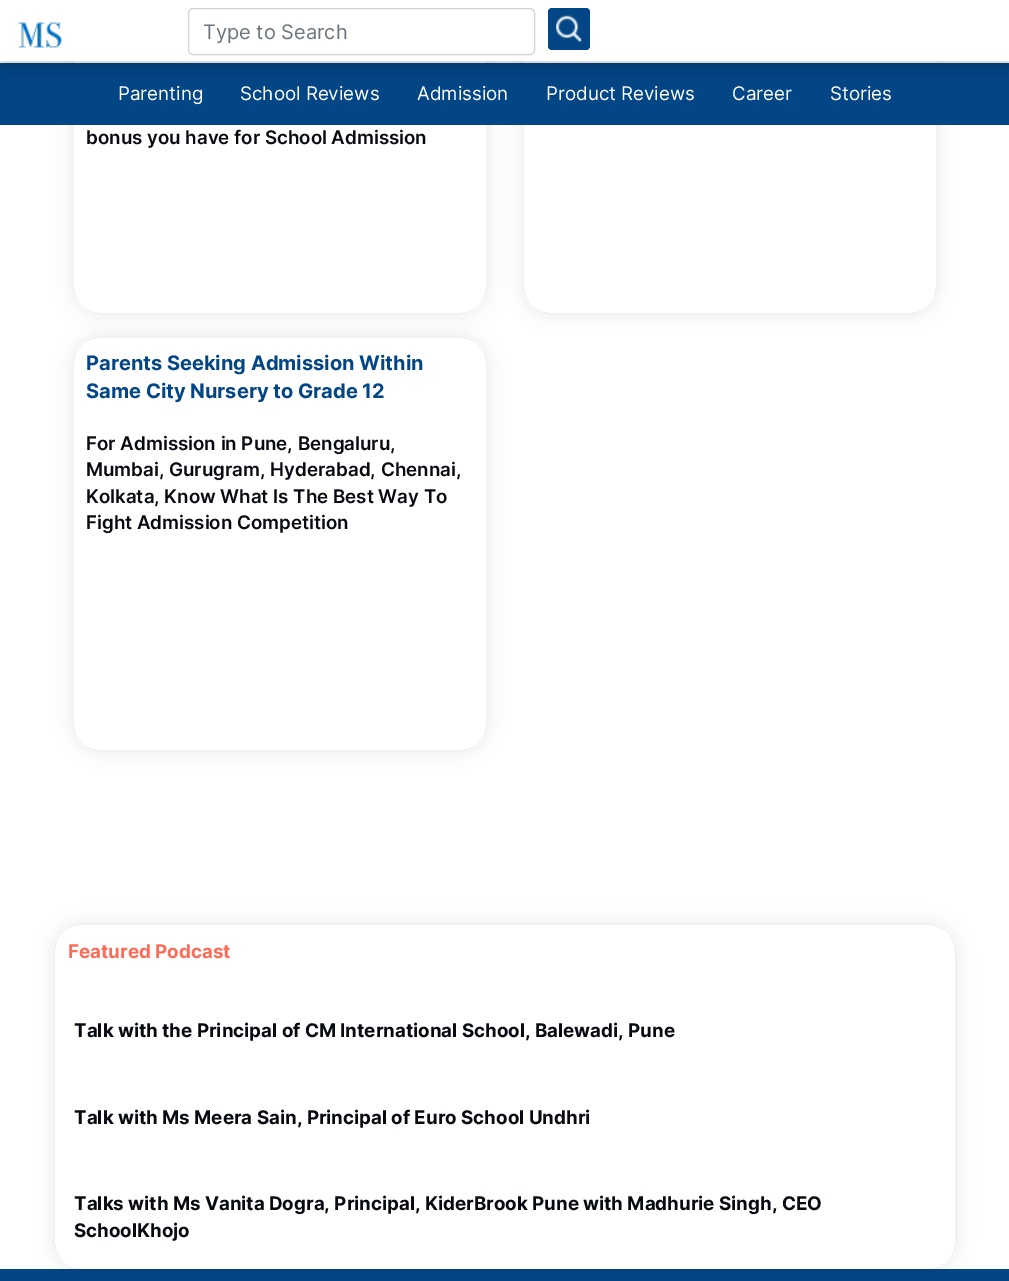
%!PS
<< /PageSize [1009 1281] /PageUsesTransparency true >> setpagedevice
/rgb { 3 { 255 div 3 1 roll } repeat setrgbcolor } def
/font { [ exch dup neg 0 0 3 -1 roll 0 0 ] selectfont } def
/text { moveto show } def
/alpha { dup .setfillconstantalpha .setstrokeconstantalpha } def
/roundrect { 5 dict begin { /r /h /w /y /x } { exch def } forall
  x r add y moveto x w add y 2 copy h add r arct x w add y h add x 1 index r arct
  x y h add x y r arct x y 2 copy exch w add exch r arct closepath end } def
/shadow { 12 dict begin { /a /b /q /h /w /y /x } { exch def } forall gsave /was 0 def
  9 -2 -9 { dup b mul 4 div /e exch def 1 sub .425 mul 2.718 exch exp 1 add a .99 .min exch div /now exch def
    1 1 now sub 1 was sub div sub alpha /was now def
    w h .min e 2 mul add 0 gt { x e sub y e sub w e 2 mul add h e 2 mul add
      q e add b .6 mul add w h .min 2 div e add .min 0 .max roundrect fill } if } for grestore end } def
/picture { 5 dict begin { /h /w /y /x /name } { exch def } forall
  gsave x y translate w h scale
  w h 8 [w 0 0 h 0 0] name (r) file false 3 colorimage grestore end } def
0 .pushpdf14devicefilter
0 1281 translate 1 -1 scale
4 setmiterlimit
255 255 255 rgb
0 0 1009 1281 rectfill
gsave
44 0 moveto 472 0 rlineto 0 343 rlineto -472 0 rlineto closepath 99 -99 moveto 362 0 rlineto 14 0 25 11 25 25 rcurveto 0 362 rlineto 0 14 -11 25 -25 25 rcurveto -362 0 rlineto -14 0 -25 -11 -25 -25 rcurveto 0 -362 rlineto 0 -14 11 -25 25 -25 rcurveto closepath eoclip newpath
0 0 0 rgb
74 -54 412 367 25 9.5 0.1 shadow
grestore
gsave
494 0 moveto 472 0 rlineto 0 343 rlineto -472 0 rlineto closepath 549 -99 moveto 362 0 rlineto 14 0 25 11 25 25 rcurveto 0 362 rlineto 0 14 -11 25 -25 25 rcurveto -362 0 rlineto -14 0 -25 -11 -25 -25 rcurveto 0 -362 rlineto 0 -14 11 -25 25 -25 rcurveto closepath eoclip newpath
0 0 0 rgb
524 -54 412 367 25 9.5 0.1 shadow
grestore
3 70 133 rgb
0 63 1009 62 rectfill
0 0 0 rgb
0 5 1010 61 0 9.5 0.2 shadow
255 255 255 rgb
0 0 1009 61 rectfill
(img_01.rgb) 18 22 44 26 picture
206 212 218 rgb
188.5 8.5 346 46 4.5 roundrect stroke
3 70 133 rgb
548 8 42 42 4 roundrect fill
(img_02.rgb) 556 15 26 27 picture
gsave
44 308 moveto 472 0 rlineto 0 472 rlineto -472 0 rlineto closepath 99 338 moveto 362 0 rlineto 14 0 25 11 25 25 rcurveto 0 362 rlineto 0 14 -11 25 -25 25 rcurveto -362 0 rlineto -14 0 -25 -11 -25 -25 rcurveto 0 -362 rlineto 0 -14 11 -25 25 -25 rcurveto closepath eoclip newpath
0 0 0 rgb
74 338 412 412 25 9.5 0.1 shadow
grestore
0 1269 1009 12 rectfill
gsave
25 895 moveto 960 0 rlineto 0 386 rlineto -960 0 rlineto closepath 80 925 moveto 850 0 rlineto 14 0 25 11 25 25 rcurveto 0 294 rlineto 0 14 -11 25 -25 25 rcurveto -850 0 rlineto -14 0 -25 -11 -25 -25 rcurveto 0 -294 rlineto 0 -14 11 -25 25 -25 rcurveto closepath eoclip newpath
0 0 0 rgb
55 925 900 344 25 9.5 0.1 shadow
grestore
/Inter-Regular 20 font
108 117 125 rgb
(Type to Search) 203 39 text
/Inter-Regular 18.75 font
255 255 255 rgb
(Parenting) 118 100 text
(School Reviews) 240 100 text
(Admission) 417 100 text
(Product Reviews) 546 100 text
(Career) 732 100 text
(Stories) 830 100 text
/Inter-SemiBold 18.75 font
8 10 18 rgb
(bonus you have for School Admission) 86 144 text
/Inter-Bold 20 font
3 70 133 rgb
(Parents Seeking Admission Within) 86 370 text
(Same City Nursery to Grade 12) 86 398 text
/Inter-SemiBold 18.75 font
8 10 18 rgb
(For Admission in Pune, Bengaluru,) 86 450 text
(Mumbai, Gurugram, Hyderabad, Chennai,) 86 476 text
(Kolkata, Know What Is The Best Way To) 86 503 text
(Fight Admission Competition) 86 529 text
/Inter-Bold 18.75 font
252 107 87 rgb
(Featured Podcast) 68 958 text
8 10 18 rgb
(Talk with the Principal of CM International School, Balewadi, Pune) 74 1037 text
(Talk with Ms Meera Sain, Principal of Euro School Undhri) 74 1124 text
(Talks with Ms Vanita Dogra, Principal, KiderBrook Pune with Madhurie Singh, CEO) 74 1210 text
(SchoolKhojo) 74 1237 text
.poppdf14devicefilter showpage
